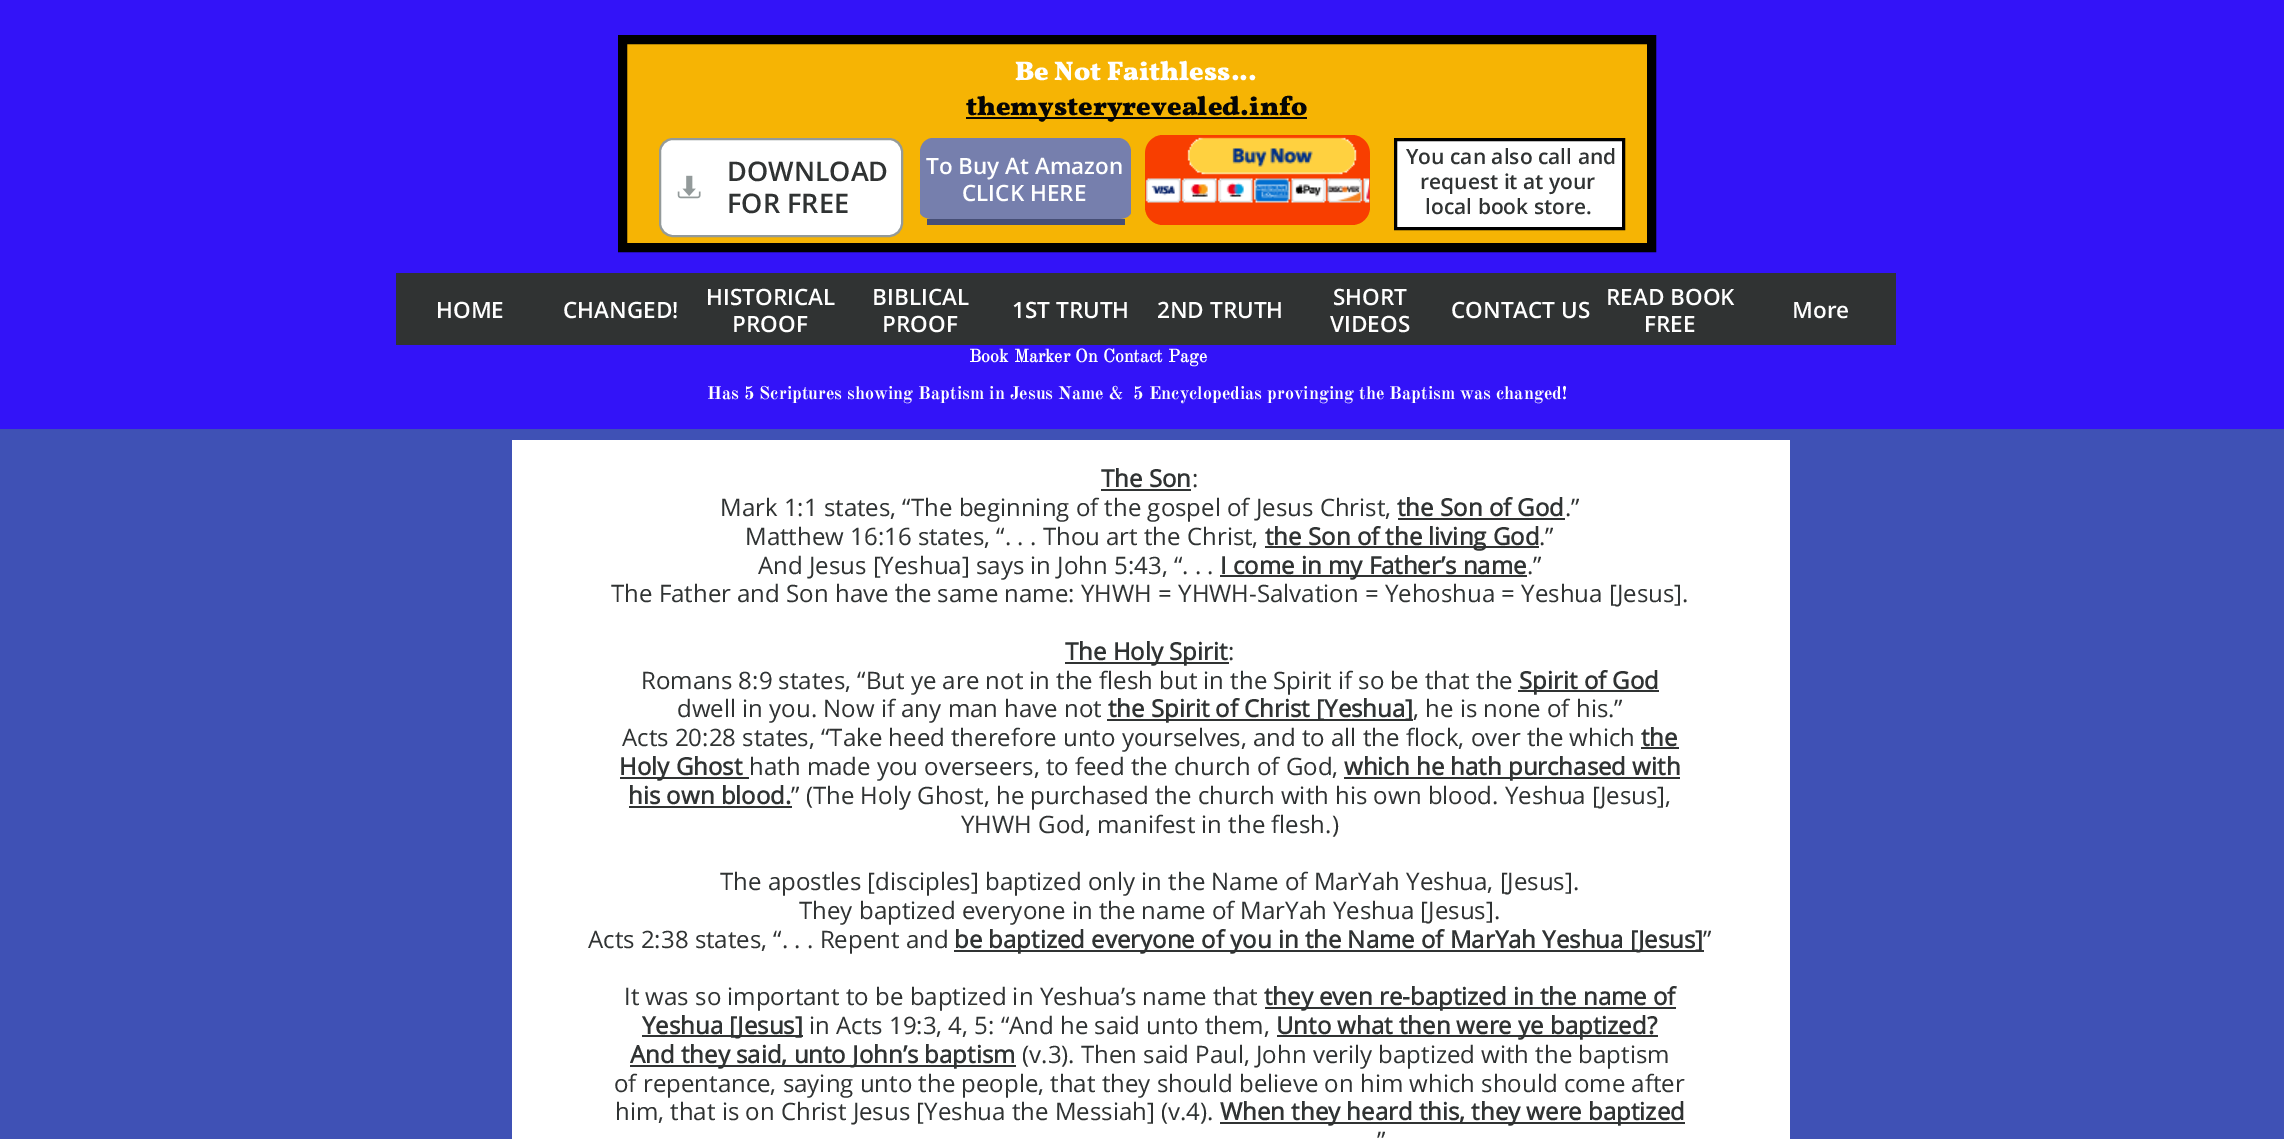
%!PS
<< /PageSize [2284 1139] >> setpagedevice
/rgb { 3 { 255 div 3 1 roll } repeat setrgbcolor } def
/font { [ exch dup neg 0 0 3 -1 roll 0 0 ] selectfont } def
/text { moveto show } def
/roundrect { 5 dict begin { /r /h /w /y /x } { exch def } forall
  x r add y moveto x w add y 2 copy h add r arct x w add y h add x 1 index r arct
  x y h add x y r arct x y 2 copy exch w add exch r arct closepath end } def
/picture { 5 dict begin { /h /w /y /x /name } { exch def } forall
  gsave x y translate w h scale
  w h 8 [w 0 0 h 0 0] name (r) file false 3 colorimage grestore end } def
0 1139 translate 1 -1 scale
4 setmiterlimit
63 81 181 rgb
0 0 2284 1139 rectfill
51 19 248 rgb
0 0 2284 429 rectfill
246 180 4 rgb
622.5 39.5 moveto 1029 0 rlineto 0 208 rlineto -1029 0 rlineto closepath gsave fill grestore
0 0 0 rgb
9 setlinewidth
stroke
5 5 5 rgb
966 117 341 2 rectfill
255 255 255 rgb
660 139 242 97 13 roundrect gsave fill grestore
147 154 154 rgb
2 setlinewidth
stroke
(img_01.rgb) 677 175 24 24 picture
118 127 173 rgb
933 138 moveto 185 0 rlineto 7 0 13 6 13 14 rcurveto 0 60 rlineto 0 4 -6 7 -13 7 rcurveto -185 0 rlineto -7 0 -13 -3 -13 -7 rcurveto 0 -60 rlineto 0 -8 6 -14 13 -14 rcurveto closepath fill
71 79 118 rgb
927 219 198 6 rectfill
248 62 0 rgb
1145 135 225 90 18 roundrect fill
(img_02.rgb) 1145 137 225 66 picture
255 255 255 rgb
1395.5 139.5 moveto 228 0 rlineto 0 89 rlineto -228 0 rlineto closepath gsave fill grestore
0 0 0 rgb
3 setlinewidth
stroke
48 51 51 rgb
396 273 1350 72 rectfill
1746 273 150 72 rectfill
255 255 255 rgb
512 440 1278 699 rectfill
48 51 51 rgb
1101 489 90 2 rectfill
1398 518 167 2 rectfill
1265 546 274 2 rectfill
1220 575 307 2 rectfill
1065 662 164 2 rectfill
1518 690 141 2 rectfill
1107 719 306 2 rectfill
1641 747 38 2 rectfill
620 777 129 2 rectfill
1344 777 336 2 rectfill
629 806 163 2 rectfill
954 950 750 2 rectfill
1265 1007 411 2 rectfill
642 1035 161 2 rectfill
1277 1035 381 2 rectfill
630 1065 386 2 rectfill
1220 1122 465 2 rectfill
/Vollkorn-Bold 27 font
255 255 255 rgb
(Be Not Faithless...) 1015 80 text
5 5 5 rgb
(themysteryrevealed.info) 966 115 text
/OpenSans-SemiBold 27 font
48 51 51 rgb
(DOWNLOAD) 727 181 text
(FOR FREE) 727 213 text
/OpenSans-SemiBold 22.5 font
255 255 255 rgb
(To Buy At Amazon) 926 174 text
(CLICK HERE) 962 201 text
/OpenSans-SemiBold 21 font
48 51 51 rgb
(You can also call and) 1406 164 text
(request it at your) 1420 189 text
(local book store.) 1425 214 text
/OpenSans-SemiBold 22.5 font
255 255 255 rgb
(HOME) 436 318 text
(CHANGED!) 563 318 text
(HISTORICAL) 706 305 text
(PROOF) 732 332 text
(BIBLICAL) 872 305 text
(PROOF) 882 332 text
(1ST TRUTH) 1012 318 text
(2ND TRUTH) 1157 318 text
(SHORT) 1333 305 text
(VIDEOS) 1330 332 text
(CONTACT US) 1451 318 text
(READ BOOK) 1606 305 text
(FREE) 1644 332 text
(More) 1792 318 text
/OldStandardTT-Bold 18 font
(Book Marker On Contact Page) 969 362 text
/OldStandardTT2-Bold 18 font
(Has 5 Scriptures showing Baptism in Jesus Name &  5 Encyclopedias provinging the Baptism was changed!) 707 399 text
/OpenSans-Bold 24 font
48 51 51 rgb
(The Son) 1101 487 text
/OpenSans-Regular 24 font
(:) 1192 487 text
(Mark 1:1 states, “The beginning of the gospel of Jesus Christ,) 720 516 text
/OpenSans-Bold 24 font
(the Son of God) 1397 516 text
/OpenSans-Regular 24 font
(.”) 1565 516 text
(Matthew 16:16 states, “. . . Thou art the Christ,) 745 545 text
/OpenSans-Bold 24 font
(the Son of the living God) 1265 545 text
/OpenSans-Regular 24 font
(.”) 1539 545 text
(And Jesus [Yeshua] says in John 5:43, “. . .) 758 574 text
/OpenSans-Bold 24 font
(I come in my Father’s name) 1220 574 text
/OpenSans-Regular 24 font
(.”) 1527 574 text
(The Father and Son have the same name: YHWH = YHWH-Salvation = Yehoshua = Yeshua [Jesus].) 611 602 text
/OpenSans-Bold 24 font
(The Holy Spirit) 1065 660 text
/OpenSans-Regular 24 font
(:) 1228 660 text
(Romans 8:9 states, “But ye are not in the flesh but in the Spirit if so be that the) 641 689 text
/OpenSans-Bold 24 font
(Spirit of God) 1519 689 text
/OpenSans-Regular 24 font
(dwell in you. Now if any man have not) 677 717 text
/OpenSans-Bold 24 font
(the Spirit of Christ [Yeshua]) 1108 717 text
/OpenSans-Regular 24 font
(, he is none of his.”) 1413 717 text
(Acts 20:28 states, “Take heed therefore unto yourselves, and to all the flock, over the which) 622 746 text
/OpenSans-Bold 24 font
(the) 1641 746 text
(Holy Ghost) 619 775 text
/OpenSans-Regular 24 font
(hath made you overseers, to feed the church of God,) 749 775 text
/OpenSans-Bold 24 font
(which he hath purchased with) 1344 775 text
(his own blood.) 628 804 text
/OpenSans-Regular 24 font
(” \(The Holy Ghost, he purchased the church with his own blood. Yeshua [Jesus],) 791 804 text
(YHWH God, manifest in the flesh.\)) 961 833 text
(The apostles [disciples] baptized only in the Name of MarYah Yeshua, [Jesus].) 720 890 text
(They baptized everyone in the name of MarYah Yeshua [Jesus].) 799 919 text
(Acts 2:38 states, “. . . Repent and) 588 948 text
/OpenSans-Bold 24 font
(be baptized everyone of you in the Name of MarYah Yeshua [Jesus]) 954 948 text
/OpenSans-Regular 24 font
(”) 1703 948 text
(It was so important to be baptized in Yeshua’s name that) 624 1005 text
/OpenSans-Bold 24 font
(they even re-baptized in the name of) 1264 1005 text
(Yeshua [Jesus]) 642 1034 text
/OpenSans-Regular 24 font
(in Acts 19:3, 4, 5: “And he said unto them,) 809 1034 text
/OpenSans-Bold 24 font
(Unto what then were ye baptized?) 1276 1034 text
(And they said, unto John’s baptism) 630 1063 text
/OpenSans-Regular 24 font
(\(v.3\). Then said Paul, John verily baptized with the baptism) 1022 1063 text
(of repentance, saying unto the people, that they should believe on him which should come after) 614 1092 text
(him, that is on Christ Jesus [Yeshua the Messiah] \(v.4\).) 615 1120 text
/OpenSans-Bold 24 font
(When they heard this, they were baptized) 1220 1120 text
/OpenSans-Regular 24 font
(”) 1377 1149 text
showpage
